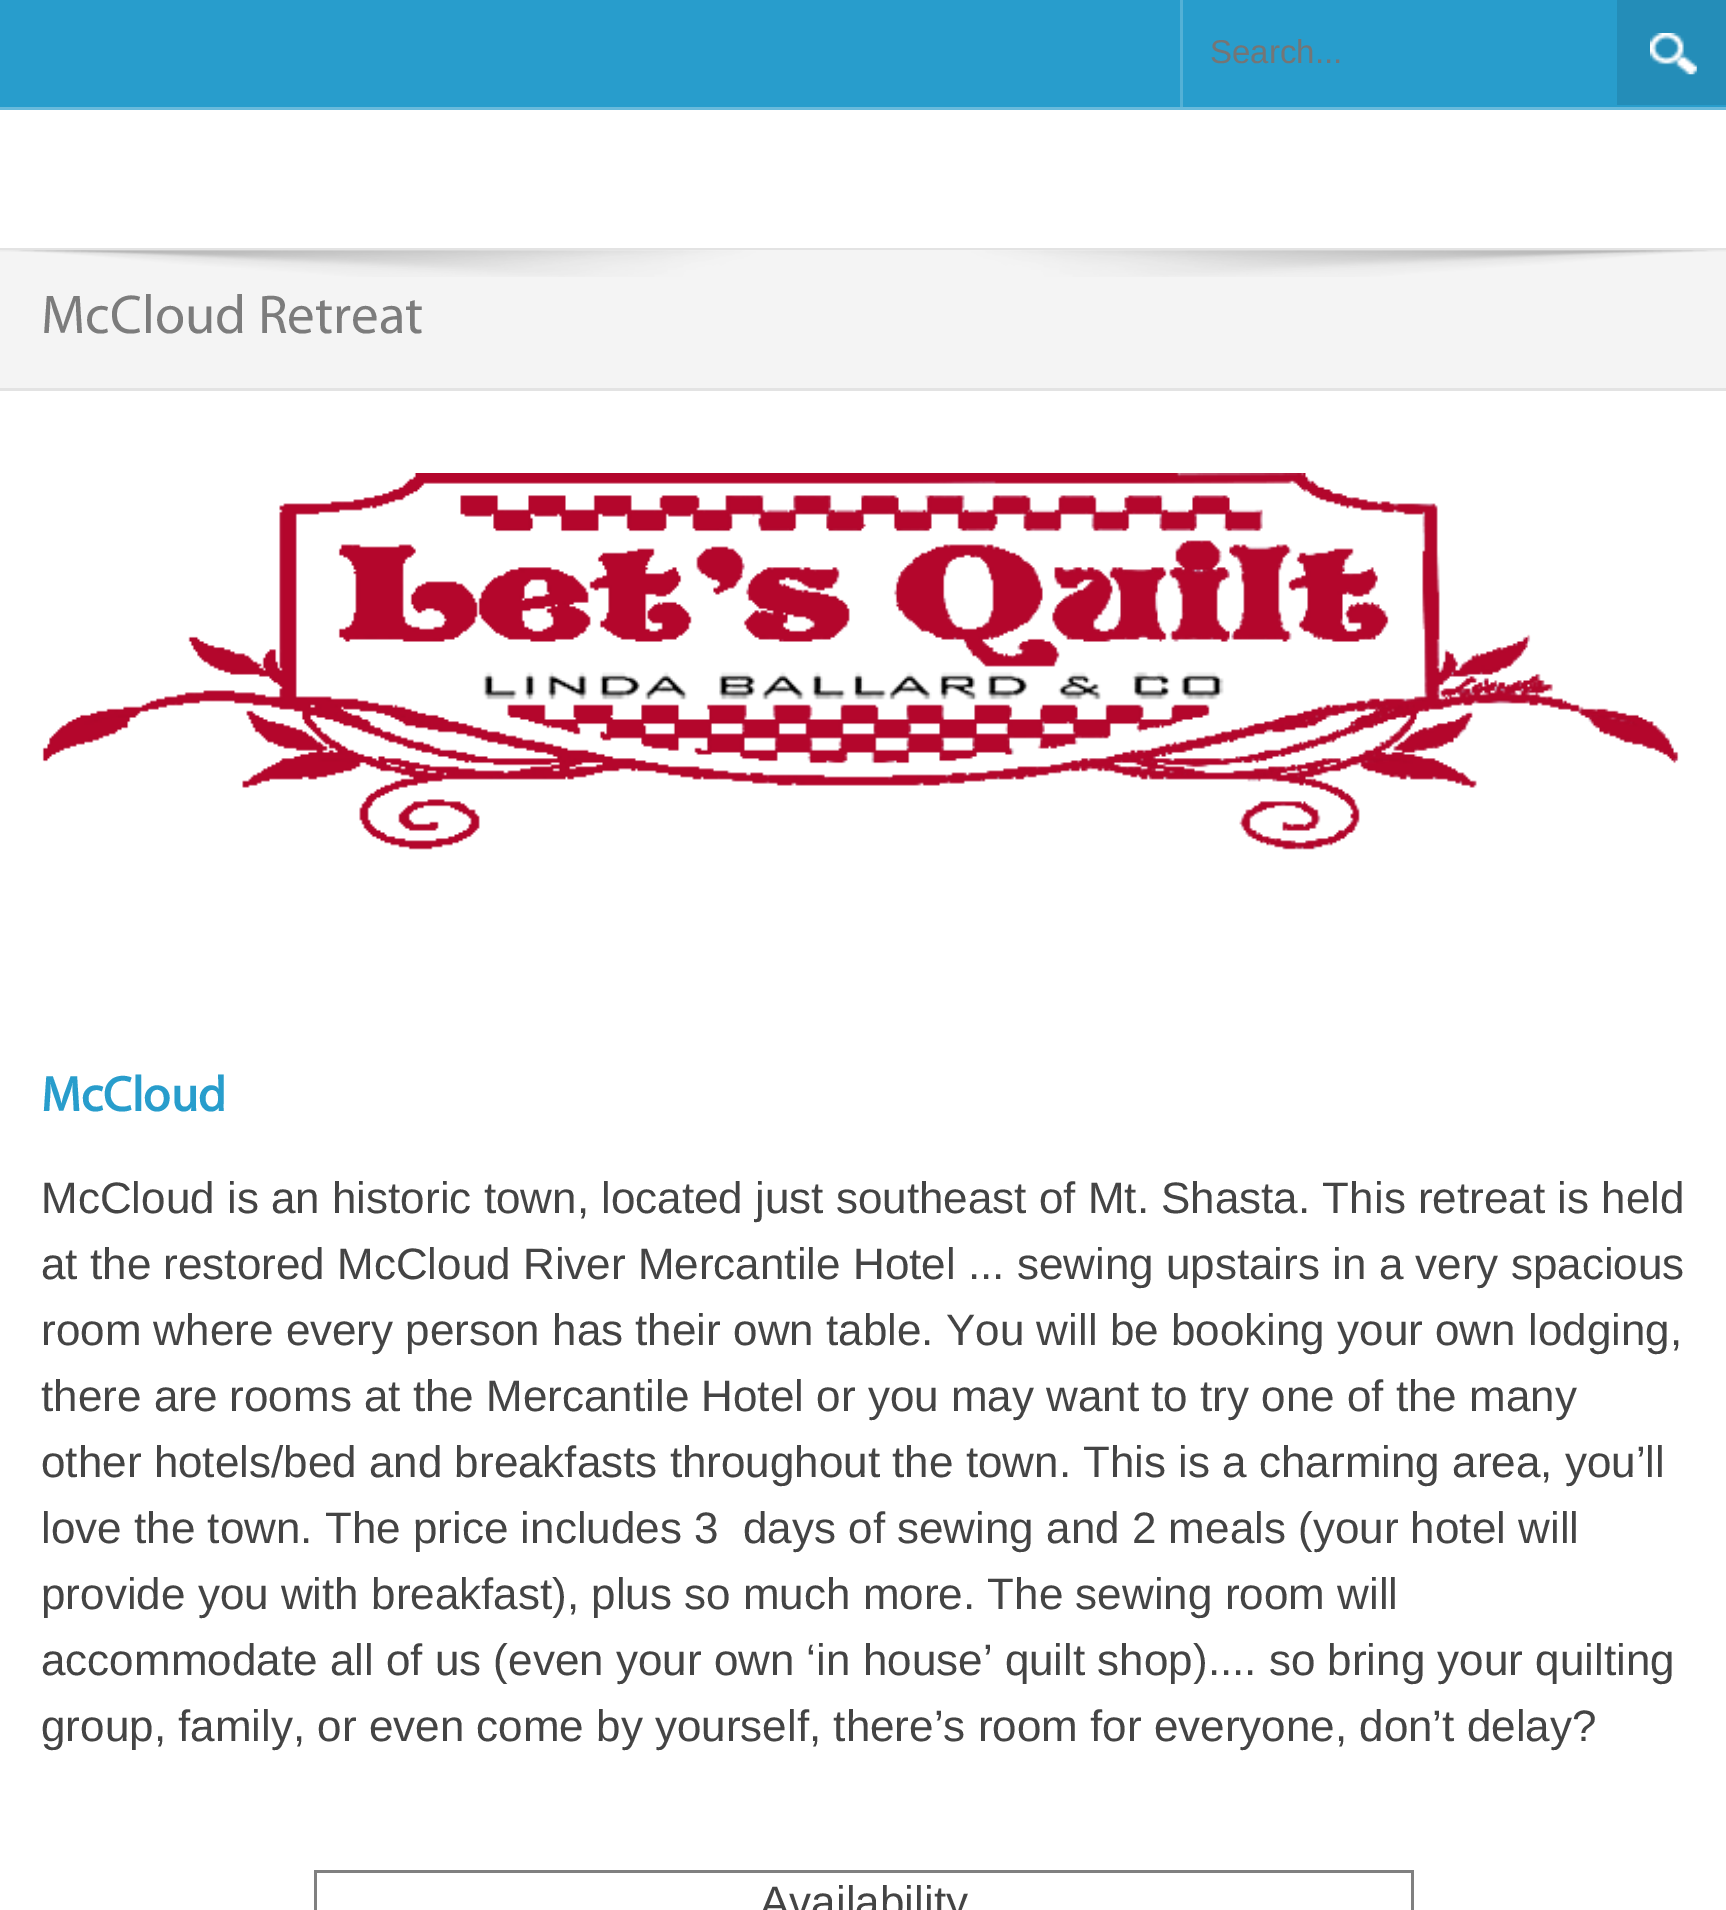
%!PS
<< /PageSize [1726 1910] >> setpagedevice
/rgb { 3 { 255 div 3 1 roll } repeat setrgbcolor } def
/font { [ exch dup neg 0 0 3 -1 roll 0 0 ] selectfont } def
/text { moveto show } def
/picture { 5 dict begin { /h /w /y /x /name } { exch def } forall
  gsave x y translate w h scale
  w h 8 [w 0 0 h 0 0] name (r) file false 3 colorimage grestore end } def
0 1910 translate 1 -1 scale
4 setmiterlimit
255 255 255 rgb
0 0 1726 1910 rectfill
40 157 204 rgb
0 0 1726 107 rectfill
105 186 219 rgb
0 107 1726 3 rectfill
83 177 214 rgb
1180 0 3 107 rectfill
36 141 184 rgb
1617 0 109 105 rectfill
(img_01.rgb) 1650 33 47 42 picture
227 227 227 rgb
0 248 1726 2 rectfill
244 244 244 rgb
0 250 1726 138 rectfill
227 227 227 rgb
0 388 1726 3 rectfill
(img_02.rgb) 0 250 1726 27 picture
(img_03.rgb) 42 473 1637 377 picture
128 128 128 rgb
314 1870 1100 3 rectfill
1411 1870 3 40 rectfill
314 1870 3 40 rectfill
/LiberationSans-Regular 33 font
117 117 117 rgb
(Search...) 1210 63 text
/Myriad-Regular 55 font
124 124 124 rgb
(McCloud Retreat) 41 333 text
/Myriad-Bold 49.5 font
40 157 204 rgb
(McCloud) 41 1111 text
/LiberationSans-Regular 44 font
68 68 68 rgb
(McCloud is an historic town, located just southeast of Mt. Shasta. This retreat is held) 41 1213 text
(at the restored McCloud River Mercantile Hotel ... sewing upstairs in a very spacious) 41 1279 text
(room where every person has their own table. You will be booking your own lodging,) 41 1345 text
(there are rooms at the Mercantile Hotel or you may want to try one of the many) 41 1411 text
(other hotels/bed and breakfasts throughout the town. This is a charming area, you’ll) 41 1477 text
(love the town. The price includes 3  days of sewing and 2 meals \(your hotel will) 41 1543 text
(provide you with breakfast\), plus so much more. The sewing room will) 41 1609 text
(accommodate all of us \(even your own ‘in house’ quilt shop\).... so bring your quilting) 41 1675 text
(group, family, or even come by yourself, there’s room for everyone, don’t delay?) 41 1741 text
(Availability) 760 1917 text
showpage
